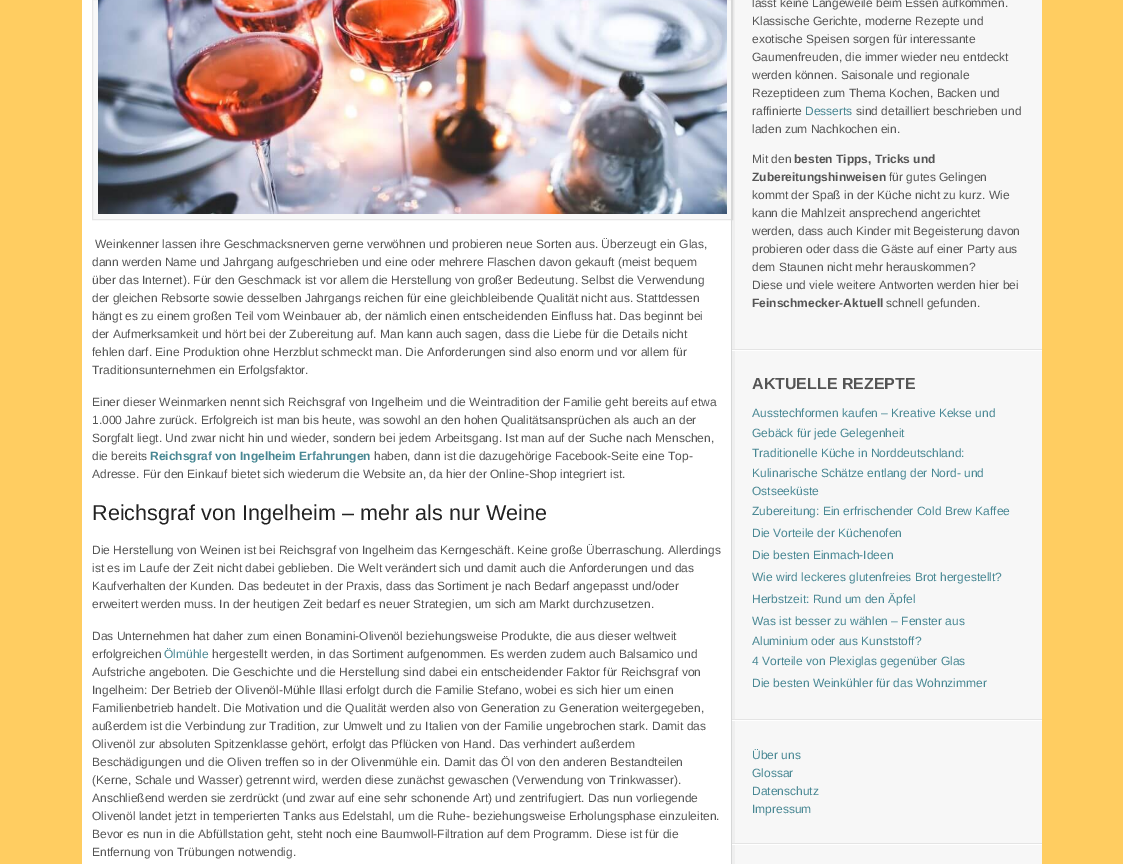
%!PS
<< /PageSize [1123 864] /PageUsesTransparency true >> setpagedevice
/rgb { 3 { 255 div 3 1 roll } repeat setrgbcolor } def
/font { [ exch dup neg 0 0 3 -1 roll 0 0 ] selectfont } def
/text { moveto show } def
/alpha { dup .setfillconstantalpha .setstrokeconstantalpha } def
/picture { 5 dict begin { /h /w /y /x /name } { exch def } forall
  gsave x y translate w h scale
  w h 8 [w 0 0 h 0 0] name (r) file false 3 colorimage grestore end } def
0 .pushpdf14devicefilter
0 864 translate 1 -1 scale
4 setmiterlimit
255 205 97 rgb
0 0 1123 864 rectfill
255 255 255 rgb
82 0 960 864 rectfill
248 248 248 rgb
93 0 638 219 rectfill
230 230 230 rgb
92.5 -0.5 640 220 rectstroke
(img_01.rgb) 98 0 629 214 picture
0.03 alpha
0 0 0 rgb
732 0 310 864 rectfill
732 0 3 864 rectfill
1 alpha
214 215 215 rgb
731 0 1 864 rectfill
228 228 228 rgb
732 349 310 1 rectfill
255 255 255 rgb
732 350 310 1 rectfill
228 228 228 rgb
732 719 310 1 rectfill
255 255 255 rgb
732 720 310 1 rectfill
228 228 228 rgb
732 843 310 1 rectfill
255 255 255 rgb
732 844 310 1 rectfill
/LiberationSans-Regular 12 font
85 85 85 rgb
(Weinkenner lassen ihre Geschmacksnerven gerne verwöhnen und probieren neue Sorten aus. Überzeugt ein Glas,) 95 248 text
(dann werden Name und Jahrgang aufgeschrieben und eine oder mehrere Flaschen davon gekauft \(meist bequem) 92 266 text
(über das Internet\). Für den Geschmack ist vor allem die Herstellung von großer Bedeutung. Selbst die Verwendung) 92 284 text
(der gleichen Rebsorte sowie desselben Jahrgangs reichen für eine gleichbleibende Qualität nicht aus. Stattdessen) 92 302 text
(hängt es zu einem großen Teil vom Weinbauer ab, der nämlich einen entscheidenden Einfluss hat. Das beginnt bei) 92 320 text
(der Aufmerksamkeit und hört bei der Zubereitung auf. Man kann auch sagen, dass die Liebe für die Details nicht) 92 338 text
(fehlen darf. Eine Produktion ohne Herzblut schmeckt man. Die Anforderungen sind also enorm und vor allem für) 92 356 text
(Traditionsunternehmen ein Erfolgsfaktor.) 92 374 text
(Einer dieser Weinmarken nennt sich Reichsgraf von Ingelheim und die Weintradition der Familie geht bereits auf etwa) 92 406 text
(1.000 Jahre zurück. Erfolgreich ist man bis heute, was sowohl an den hohen Qualitätsansprüchen als auch an der) 92 424 text
(Sorgfalt liegt. Und zwar nicht hin und wieder, sondern bei jedem Arbeitsgang. Ist man auf der Suche nach Menschen,) 92 442 text
(die bereits) 92 460 text
/LiberationSans-Bold 12 font
72 135 147 rgb
(Reichsgraf von Ingelheim Erfahrungen) 150 460 text
/LiberationSans-Regular 12 font
85 85 85 rgb
(haben, dann ist die dazugehörige Facebook-Seite eine Top-) 374 460 text
(Adresse. Für den Einkauf bietet sich wiederum die Website an, da hier der Online-Shop integriert ist.) 92 478 text
/LiberationSans-Regular 21.6 font
34 34 34 rgb
(Reichsgraf von Ingelheim – mehr als nur Weine) 92 520 text
/LiberationSans-Regular 12 font
85 85 85 rgb
(Die Herstellung von Weinen ist bei Reichsgraf von Ingelheim das Kerngeschäft. Keine große Überraschung. Allerdings) 92 554 text
(ist es im Laufe der Zeit nicht dabei geblieben. Die Welt verändert sich und damit auch die Anforderungen und das) 92 572 text
(Kaufverhalten der Kunden. Das bedeutet in der Praxis, dass das Sortiment je nach Bedarf angepasst und/oder) 92 590 text
(erweitert werden muss. In der heutigen Zeit bedarf es neuer Strategien, um sich am Markt durchzusetzen.) 92 608 text
(Das Unternehmen hat daher zum einen Bonamini-Olivenöl beziehungsweise Produkte, die aus dieser weltweit) 92 640 text
(erfolgreichen) 92 658 text
72 135 147 rgb
(Ölmühle) 164 658 text
85 85 85 rgb
(hergestellt werden, in das Sortiment aufgenommen. Es werden zudem auch Balsamico und) 212 658 text
(Aufstriche angeboten. Die Geschichte und die Herstellung sind dabei ein entscheidender Faktor für Reichsgraf von) 92 676 text
(Ingelheim: Der Betrieb der Olivenöl-Mühle Illasi erfolgt durch die Familie Stefano, wobei es sich hier um einen) 92 694 text
(Familienbetrieb handelt. Die Motivation und die Qualität werden also von Generation zu Generation weitergegeben,) 92 712 text
(außerdem ist die Verbindung zur Tradition, zur Umwelt und zu Italien von der Familie ungebrochen stark. Damit das) 92 730 text
(Olivenöl zur absoluten Spitzenklasse gehört, erfolgt das Pflücken von Hand. Das verhindert außerdem) 92 748 text
(Beschädigungen und die Oliven treffen so in der Olivenmühle ein. Damit das Öl von den anderen Bestandteilen) 92 766 text
(\(Kerne, Schale und Wasser\) getrennt wird, werden diese zunächst gewaschen \(Verwendung von Trinkwasser\).) 92 784 text
(Anschließend werden sie zerdrückt \(und zwar auf eine sehr schonende Art\) und zentrifugiert. Das nun vorliegende) 92 802 text
(Olivenöl landet jetzt in temperierten Tanks aus Edelstahl, um die Ruhe- beziehungsweise Erholungsphase einzuleiten.) 92 820 text
(Bevor es nun in die Abfüllstation geht, steht noch eine Baumwoll-Filtration auf dem Programm. Diese ist für die) 92 838 text
(Entfernung von Trübungen notwendig.) 92 856 text
(lässt keine Langeweile beim Essen aufkommen.) 752 7 text
(Klassische Gerichte, moderne Rezepte und) 752 25 text
(exotische Speisen sorgen für interessante) 752 43 text
(Gaumenfreuden, die immer wieder neu entdeckt) 752 61 text
(werden können. Saisonale und regionale) 752 79 text
(Rezeptideen zum Thema Kochen, Backen und) 752 97 text
(raffinierte) 752 115 text
72 135 147 rgb
(Desserts) 805 115 text
85 85 85 rgb
(sind detailliert beschrieben und) 856 115 text
(laden zum Nachkochen ein.) 752 133 text
(Mit den) 752 163 text
/LiberationSans-Bold 12 font
(besten Tipps, Tricks und) 794 163 text
(Zubereitungshinweisen) 752 181 text
/LiberationSans-Regular 12 font
(für gutes Gelingen) 889 181 text
(kommt der Spaß in der Küche nicht zu kurz. Wie) 752 199 text
(kann die Mahlzeit ansprechend angerichtet) 752 217 text
(werden, dass auch Kinder mit Begeisterung davon) 752 235 text
(probieren oder dass die Gäste auf einer Party aus) 752 253 text
(dem Staunen nicht mehr herauskommen?) 752 271 text
(Diese und viele weitere Antworten werden hier bei) 752 289 text
/LiberationSans-Bold 12 font
(Feinschmecker-Aktuell) 752 307 text
/LiberationSans-Regular 12 font
(schnell gefunden.) 886 307 text
/LiberationSans-Bold 16 font
(AKTUELLE REZEPTE) 752 389 text
/LiberationSans-Regular 12 font
72 135 147 rgb
(Ausstechformen kaufen – Kreative Kekse und) 752 417 text
(Gebäck für jede Gelegenheit) 752 437 text
(Traditionelle Küche in Norddeutschland:) 752 457 text
(Kulinarische Schätze entlang der Nord- und) 752 477 text
(Ostseeküste) 752 495 text
(Zubereitung: Ein erfrischender Cold Brew Kaffee) 752 515 text
(Die Vorteile der Küchenofen) 752 537 text
(Die besten Einmach-Ideen) 752 559 text
(Wie wird leckeres glutenfreies Brot hergestellt?) 752 581 text
(Herbstzeit: Rund um den Äpfel) 752 603 text
(Was ist besser zu wählen – Fenster aus) 752 625 text
(Aluminium oder aus Kunststoff?) 752 645 text
(4 Vorteile von Plexiglas gegenüber Glas) 752 665 text
(Die besten Weinkühler für das Wohnzimmer) 752 687 text
(Über uns) 752 759 text
(Glossar) 752 777 text
(Datenschutz) 752 795 text
(Impressum) 752 813 text
.poppdf14devicefilter showpage
